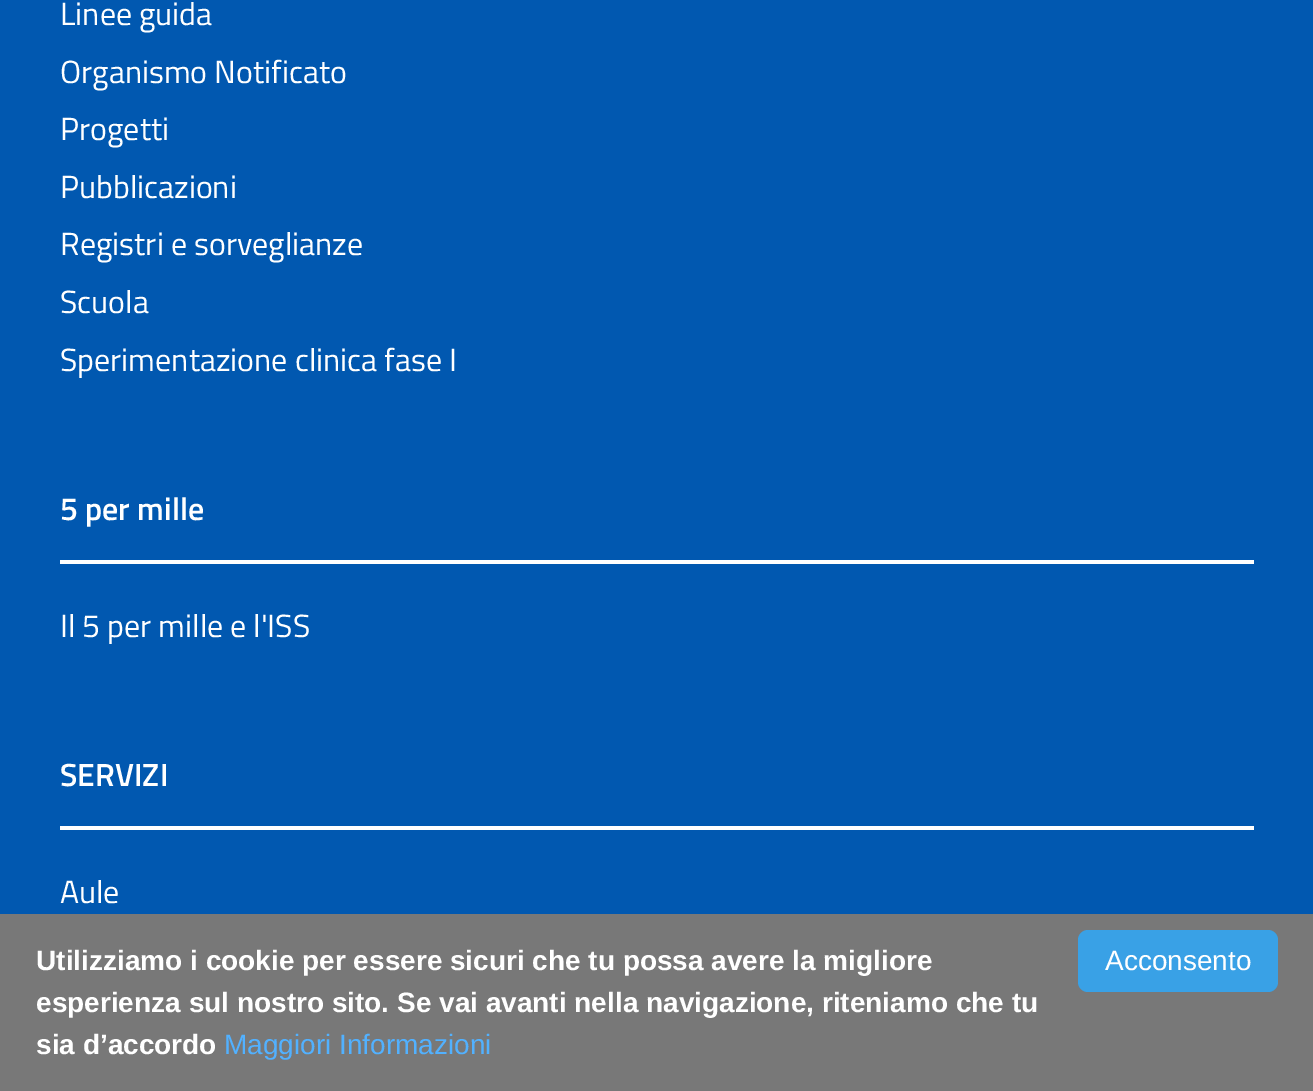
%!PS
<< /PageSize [1313 1091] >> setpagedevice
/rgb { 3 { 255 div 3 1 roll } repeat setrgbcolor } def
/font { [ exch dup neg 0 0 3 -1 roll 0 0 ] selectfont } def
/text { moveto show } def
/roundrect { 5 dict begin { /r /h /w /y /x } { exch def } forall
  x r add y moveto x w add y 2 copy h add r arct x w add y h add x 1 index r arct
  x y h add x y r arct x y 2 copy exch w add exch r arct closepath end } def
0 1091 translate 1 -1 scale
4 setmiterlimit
1 88 176 rgb
0 0 1313 1091 rectfill
255 255 255 rgb
60 560 1194 4 rectfill
60 826 1194 4 rectfill
120 120 120 rgb
0 914 1313 177 rectfill
57 161 230 rgb
1078 930 200 62 10 roundrect fill
/TitilliumWeb-Regular 32 font
255 255 255 rgb
(Linee guida) 60 25 text
(Organismo Notificato) 60 83 text
(Progetti) 60 140 text
(Pubblicazioni) 60 198 text
(Registri e sorveglianze) 60 255 text
(Scuola) 60 313 text
(Sperimentazione clinica fase I) 60 371 text
/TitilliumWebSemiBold-SemiBold 32 font
(5 per mille) 60 520 text
/TitilliumWeb-Regular 32 font
(Il 5 per mille e l'ISS) 60 637 text
/TitilliumWebSemiBold-SemiBold 32 font
(SERVIZI) 60 786 text
/TitilliumWeb-Regular 32 font
(Aule) 60 903 text
/LiberationSans-Bold 28 font
(Utilizziamo i cookie per essere sicuri che tu possa avere la migliore) 36 970 text
(esperienza sul nostro sito. Se vai avanti nella navigazione, riteniamo che tu) 36 1012 text
(sia d’accordo) 36 1054 text
/LiberationSans-Regular 28 font
82 177 255 rgb
(Maggiori Informazioni) 224 1054 text
255 255 255 rgb
(Acconsento) 1105 970 text
showpage
